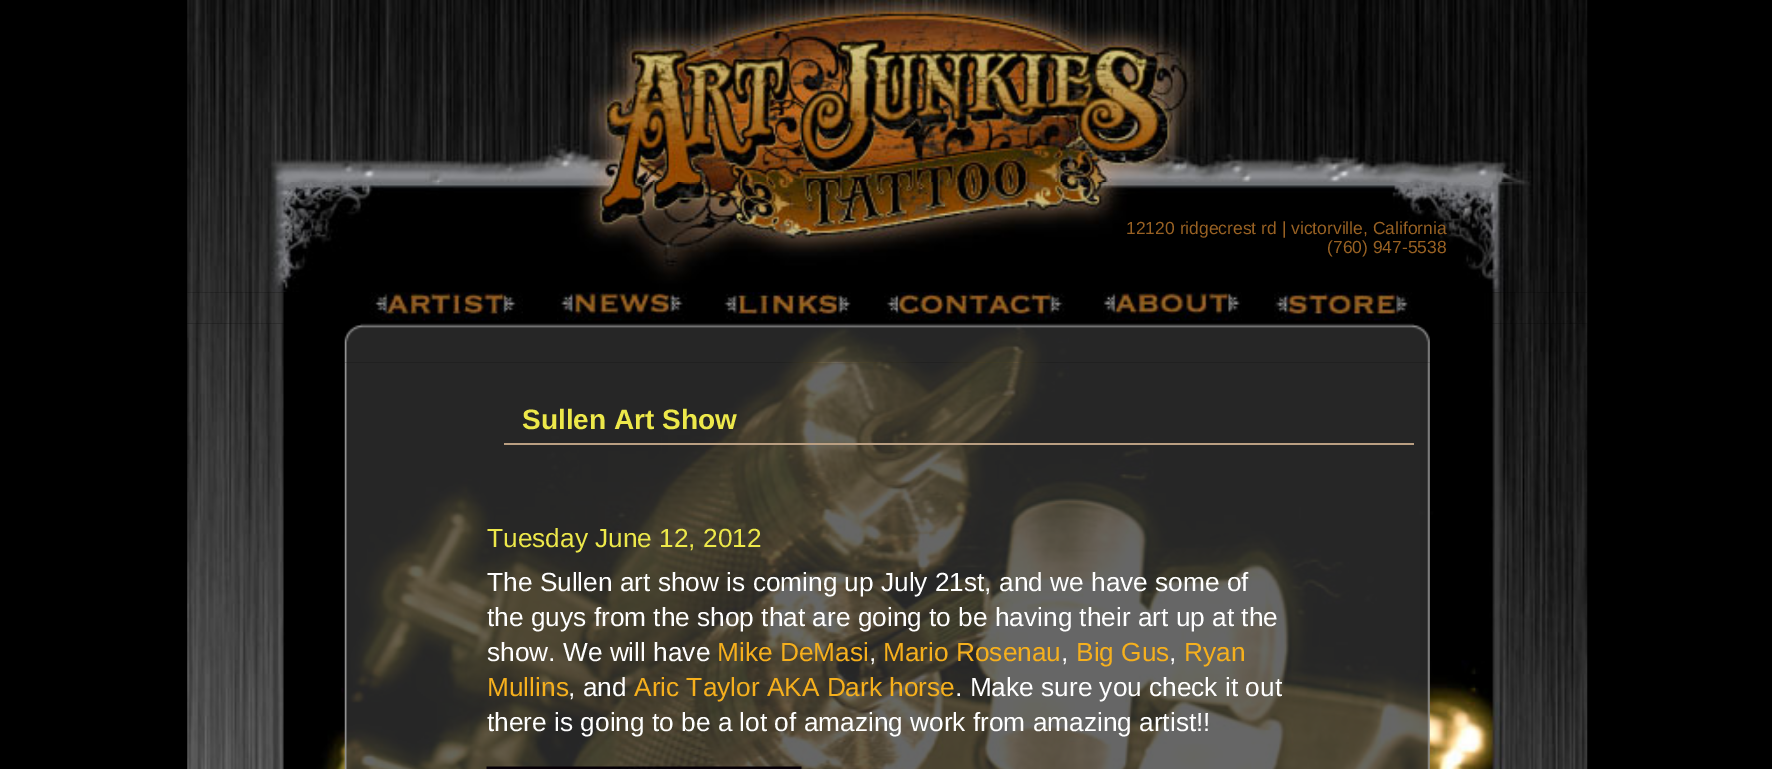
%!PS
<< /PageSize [1772 769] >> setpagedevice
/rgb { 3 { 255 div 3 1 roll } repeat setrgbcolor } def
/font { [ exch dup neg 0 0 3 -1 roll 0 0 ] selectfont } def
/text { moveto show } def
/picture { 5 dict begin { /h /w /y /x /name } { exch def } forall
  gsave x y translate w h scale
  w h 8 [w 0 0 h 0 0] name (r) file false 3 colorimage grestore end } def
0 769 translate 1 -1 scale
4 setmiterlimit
0 0 0 rgb
0 0 1772 769 rectfill
(img_01.rgb) 187 0 1401 182 picture
(img_02.rgb) 187 182 758 111 picture
(img_03.rgb) 945 182 643 111 picture
(img_10.rgb) 187 323 1401 446 picture
(img_04.rgb) 187 292 336 32 picture
(img_05.rgb) 557 292 130 29 picture
(img_06.rgb) 724 292 127 29 picture
(img_07.rgb) 884 292 182 29 picture
(img_08.rgb) 1103 292 139 29 picture
(img_09.rgb) 1274 292 314 32 picture
(img_12.rgb) 344 362 1086 407 picture
(img_11.rgb) 344 323 1086 40 picture
186 159 130 rgb
504 443 910 2 rectfill
(img_13.rgb) 486 766 316 3 picture
/LiberationSans-Regular 17.5 font
152 97 35 rgb
(12120 ridgecrest rd | victorville, California) 1126 234 text
(\(760\) 947-5538) 1327 253 text
/LiberationSans-Bold 28 font
237 232 74 rgb
(Sullen Art Show) 522 429 text
/LiberationSans-Regular 26.25 font
(Tuesday June 12, 2012) 487 547 text
255 255 255 rgb
(The Sullen art show is coming up July 21st, and we have some of) 487 591 text
(the guys from the shop that are going to be having their art up at the) 487 626 text
(show. We will have) 487 661 text
246 176 29 rgb
(Mike DeMasi) 717 661 text
255 255 255 rgb
(,) 869 661 text
246 176 29 rgb
(Mario Rosenau) 883 661 text
255 255 255 rgb
(,) 1061 661 text
246 176 29 rgb
(Big Gus) 1076 661 text
255 255 255 rgb
(,) 1169 661 text
246 176 29 rgb
(Ryan) 1184 661 text
(Mullins) 487 696 text
255 255 255 rgb
(, and) 568 696 text
246 176 29 rgb
(Aric Taylor AKA Dark horse) 634 696 text
255 255 255 rgb
(. Make sure you check it out) 955 696 text
(there is going to be a lot of amazing work from amazing artist!!) 487 731 text
showpage
